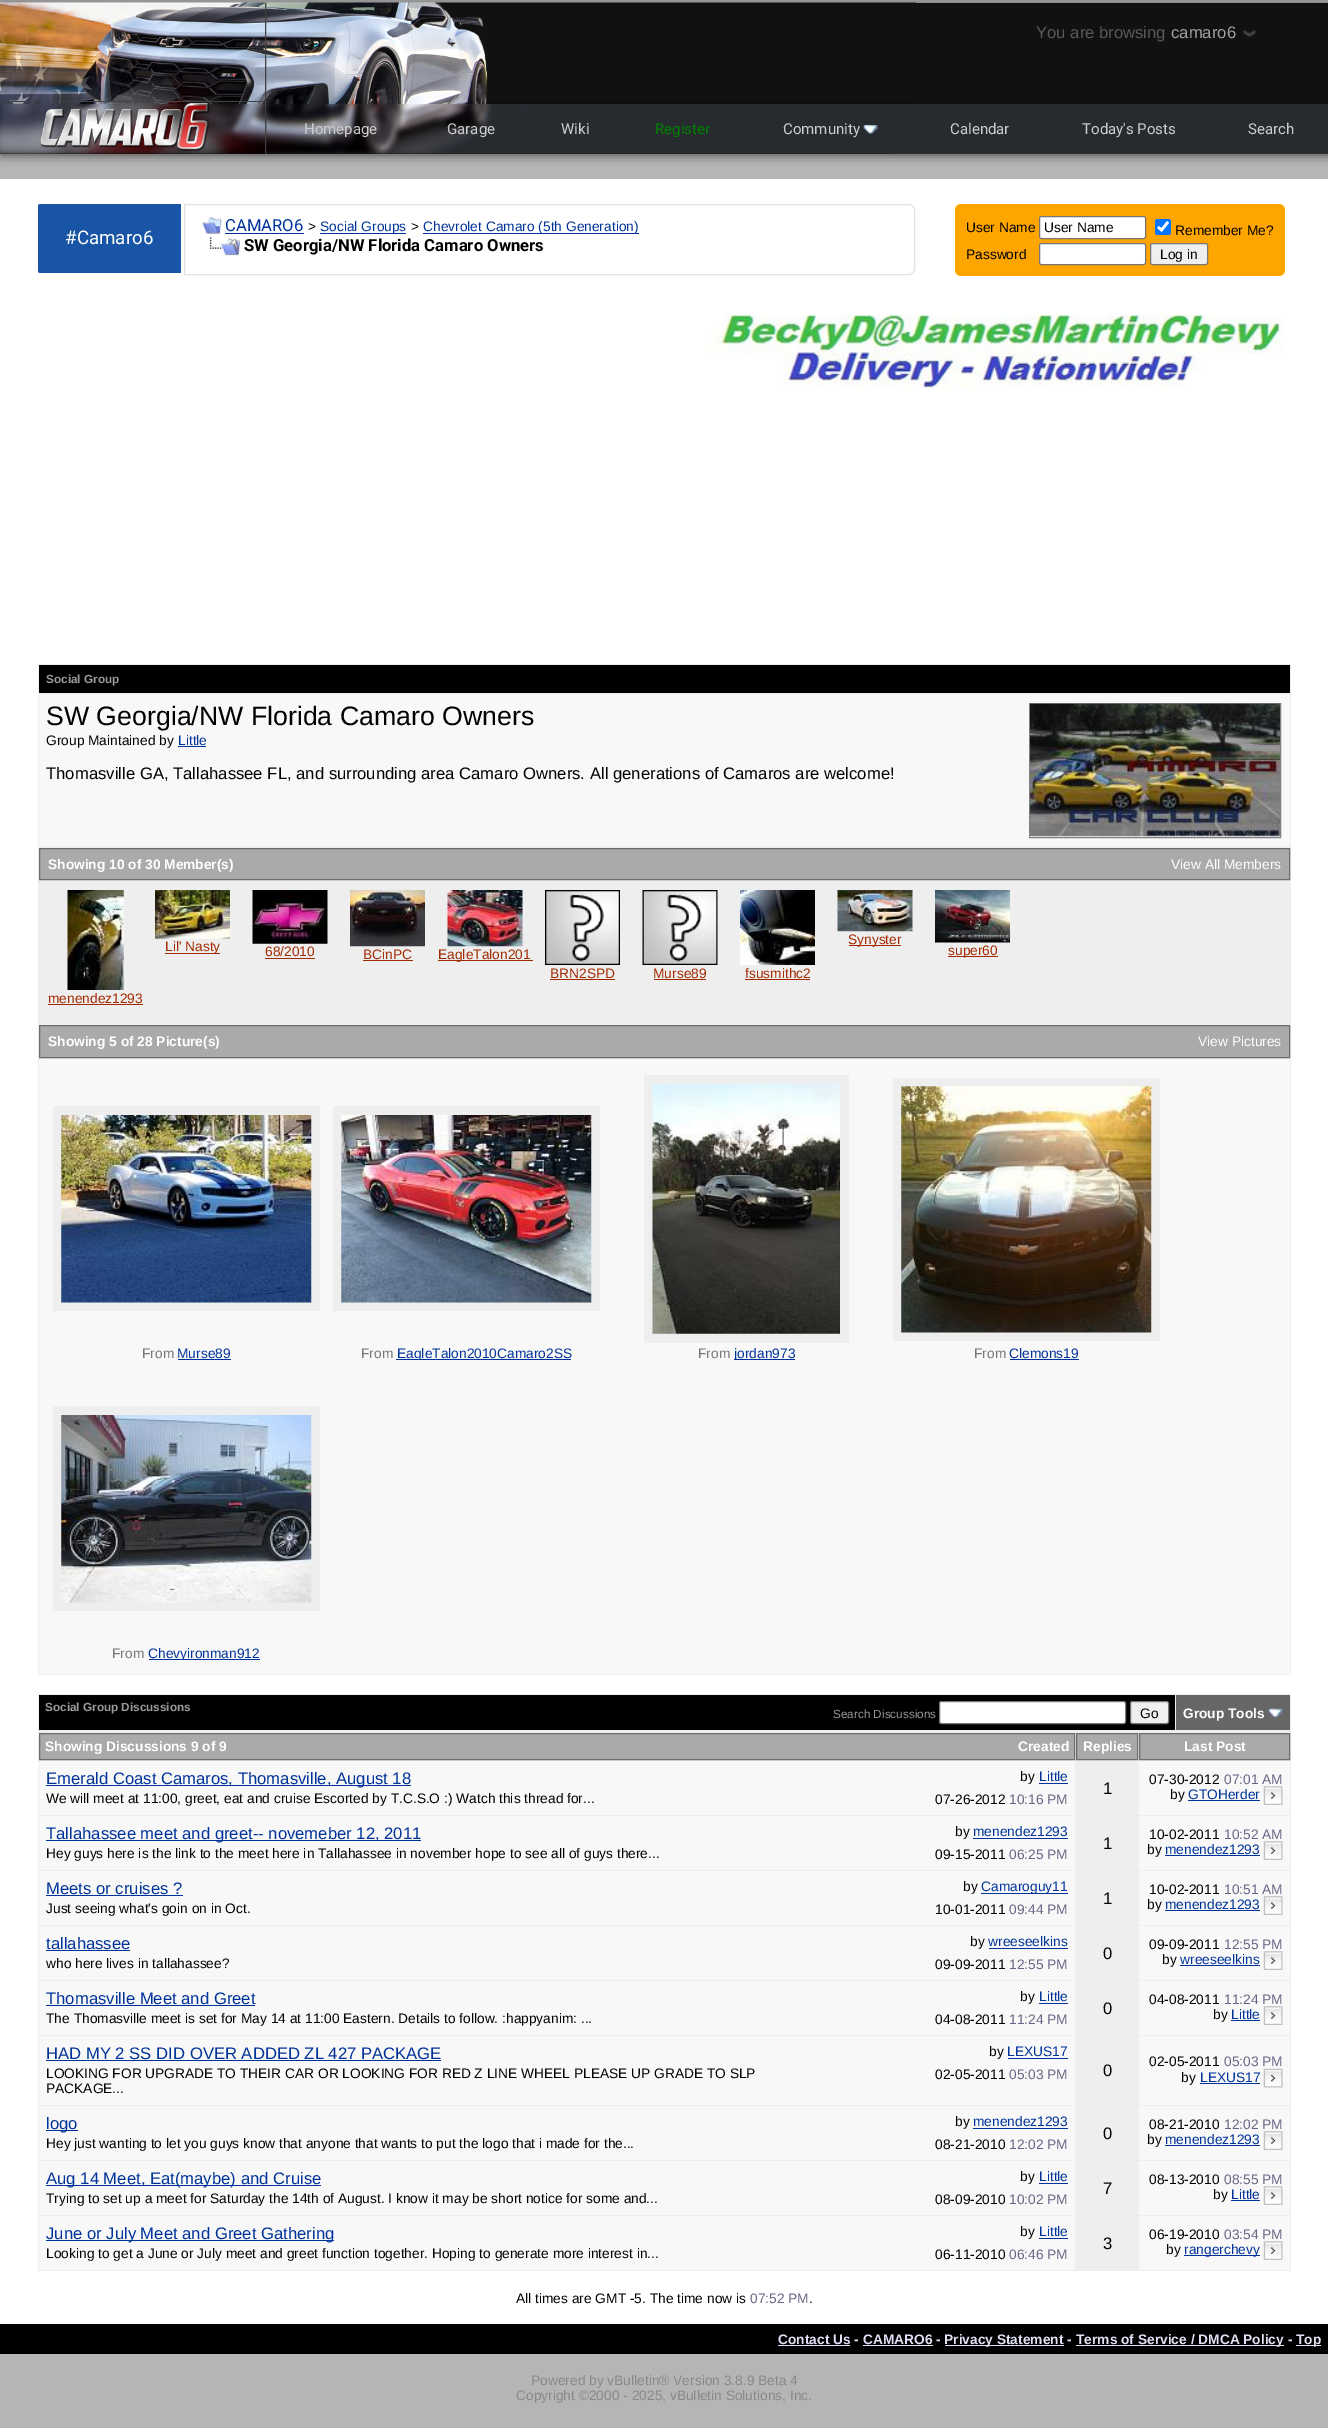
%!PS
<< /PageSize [1328 2428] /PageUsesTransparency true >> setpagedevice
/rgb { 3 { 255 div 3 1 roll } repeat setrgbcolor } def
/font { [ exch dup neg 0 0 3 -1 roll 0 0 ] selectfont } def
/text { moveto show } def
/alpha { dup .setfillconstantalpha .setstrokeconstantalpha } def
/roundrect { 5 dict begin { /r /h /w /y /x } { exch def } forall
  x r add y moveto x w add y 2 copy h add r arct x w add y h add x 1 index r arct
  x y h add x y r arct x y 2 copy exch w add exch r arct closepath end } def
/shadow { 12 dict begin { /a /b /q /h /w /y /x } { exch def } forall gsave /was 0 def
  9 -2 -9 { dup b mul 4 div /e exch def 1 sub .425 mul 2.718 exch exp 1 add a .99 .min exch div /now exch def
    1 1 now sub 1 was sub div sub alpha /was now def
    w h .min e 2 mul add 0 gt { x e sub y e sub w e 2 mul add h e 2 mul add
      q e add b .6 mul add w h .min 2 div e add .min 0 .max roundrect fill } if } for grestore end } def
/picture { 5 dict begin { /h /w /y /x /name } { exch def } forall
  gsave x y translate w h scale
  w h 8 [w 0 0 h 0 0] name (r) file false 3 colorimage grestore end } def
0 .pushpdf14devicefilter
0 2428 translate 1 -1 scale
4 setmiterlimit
181 181 181 rgb
0 0 1328 2428 rectfill
0 0 0 rgb
1 4 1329 151 0 5 0.65 shadow
17 17 17 rgb
0 3 1328 151 rectfill
(img_01.rgb) 1242 30 14 7 picture
(img_02.rgb) 0 2 267 152 picture
66 66 66 rgb
265 3 1 151 rectfill
0 101 265 1 rectfill
(img_03.rgb) 40 103 169 48 picture
(img_04.rgb) 266 2 651 152 picture
39 43 48 rgb
891 104 437 50 rectfill
(img_05.rgb) 863 125 15 9 picture
255 255 255 rgb
0 179 1328 2145 rectfill
25 85 166 rgb
40.5 204 moveto 140.5 0 rlineto 0 69 rlineto -140.5 0 rlineto -1.5 0 -2.5 -1 -2.5 -2.5 rcurveto 0 -64 rlineto 0 -1.5 1 -2.5 2.5 -2.5 rcurveto closepath fill
226 226 226 rgb
184.5 204.5 moveto 724.5 0 rlineto 3 0 5.5 2.5 5.5 5.5 rcurveto 0 59 rlineto 0 3 -2.5 5.5 -5.5 5.5 rcurveto -724.5 0 rlineto closepath stroke
(img_06.rgb) 202 217 20 17 picture
0 51 153 rgb
225 233 79 1 rectfill
320 233 86 1 rectfill
423 233 216 1 rectfill
(img_07.rgb) 209 237 31 19 picture
255 165 0 rgb
955 204 330 72 6 roundrect fill
255 255 255 rgb
1039.5 216.5 106 22 2 roundrect gsave fill grestore
118 118 118 rgb
stroke
0 117 255 rgb
1155 219 16 16 2.5 roundrect fill
255 255 255 rgb
2.6 setlinewidth
1158 227 moveto 3.5 3 rlineto 6.5 -8 rlineto stroke
1039.5 243.5 106 21 2 roundrect gsave fill grestore
118 118 118 rgb
1 setlinewidth
stroke
239 239 239 rgb
1150.5 243.5 57 21 2 roundrect gsave fill grestore
118 118 118 rgb
stroke
(img_08.rgb) 706 314 580 75 picture
238 238 238 rgb
38 664 1253 1011 rectfill
0 0 0 rgb
39 665 1251 28 rectfill
248 248 248 rgb
39 694 1251 152 rectfill
128 128 128 rgb
1029.5 703.5 251 134 rectstroke
(img_09.rgb) 1030 703 250 134 picture
0 51 153 rgb
178 746 28 1 rectfill
170 170 170 rgb
39.5 848.5 moveto 1250 0 rlineto 0 31 rlineto -1250 0 rlineto closepath gsave fill grestore
108 108 108 rgb
stroke
(img_10.rgb) 155 890 75 49 picture
162 42 0 rgb
165 953 55 1 rectfill
(img_11.rgb) 252 890 76 54 picture
265 958 50 1 rectfill
(img_12.rgb) 350 890 75 57 picture
363 960 50 1 rectfill
(img_13.rgb) 447 890 76 57 picture
438 960 95 1 rectfill
(img_14.rgb) 837 890 76 42 picture
849 945 52 1 rectfill
(img_15.rgb) 935 890 75 53 picture
948 956 50 1 rectfill
(img_16.rgb) 545 890 75 75 picture
550 979 65 1 rectfill
(img_17.rgb) 642 890 76 75 picture
654 979 52 1 rectfill
(img_18.rgb) 740 890 75 75 picture
745 979 65 1 rectfill
(img_19.rgb) 67 890 57 100 picture
48 1004 95 1 rectfill
170 170 170 rgb
39.5 1025.5 moveto 1250 0 rlineto 0 32 rlineto -1250 0 rlineto closepath gsave fill grestore
108 108 108 rgb
stroke
248 248 248 rgb
39 1059 1251 615 rectfill
238 238 238 rgb
53 1106 267 205 rectfill
(img_20.rgb) 61 1115 251 188 picture
0 51 153 rgb
178 1359 53 1 rectfill
238 238 238 rgb
333 1106 267 205 rectfill
(img_21.rgb) 341 1115 251 188 picture
0 51 153 rgb
396 1359 175 1 rectfill
238 238 238 rgb
644 1075 205 268 rectfill
(img_22.rgb) 652 1083 188 251 picture
0 51 153 rgb
734 1359 61 1 rectfill
238 238 238 rgb
893 1078 267 263 rectfill
(img_23.rgb) 901 1086 251 247 picture
0 51 153 rgb
1010 1359 69 1 rectfill
238 238 238 rgb
53 1406 267 205 rectfill
(img_24.rgb) 61 1415 251 188 picture
0 51 153 rgb
149 1659 111 1 rectfill
238 238 238 rgb
38 1694 1253 577 rectfill
0 0 0 rgb
39 1695 1136 35 rectfill
255 255 255 rgb
939.5 1701.5 186 22 2 roundrect gsave fill grestore
118 118 118 rgb
stroke
239 239 239 rgb
1130.5 1701.5 38 22 2 roundrect gsave fill grestore
118 118 118 rgb
stroke
102 102 102 rgb
1176 1695 114 35 rectfill
(img_25.rgb) 1268 1708 15 10 picture
170 170 170 rgb
39.5 1733.5 moveto 1035 0 rlineto 0 26 rlineto -1035 0 rlineto closepath gsave fill grestore
108 108 108 rgb
stroke
170 170 170 rgb
1076.5 1733.5 moveto 61 0 rlineto 0 26 rlineto -61 0 rlineto closepath gsave fill grestore
108 108 108 rgb
stroke
170 170 170 rgb
1139.5 1733.5 moveto 150 0 rlineto 0 26 rlineto -150 0 rlineto closepath gsave fill grestore
108 108 108 rgb
stroke
248 248 248 rgb
39 1761 1036 54 rectfill
0 51 153 rgb
46 1785 365 1 rectfill
1039 1783 29 1 rectfill
248 248 248 rgb
1139 1761 151 54 rectfill
0 51 153 rgb
1188 1800 72 1 rectfill
(img_26.rgb) 1263 1786 20 19 picture
248 248 248 rgb
39 1816 1036 54 rectfill
0 51 153 rgb
46 1840 375 1 rectfill
973 1838 95 1 rectfill
248 248 248 rgb
1139 1816 151 54 rectfill
0 51 153 rgb
1165 1855 95 1 rectfill
(img_26.rgb) 1263 1841 20 19 picture
248 248 248 rgb
39 1871 1036 54 rectfill
0 51 153 rgb
46 1895 137 1 rectfill
981 1893 87 1 rectfill
248 248 248 rgb
1139 1871 151 54 rectfill
0 51 153 rgb
1165 1910 95 1 rectfill
(img_26.rgb) 1263 1896 20 19 picture
248 248 248 rgb
39 1926 1036 54 rectfill
0 51 153 rgb
46 1950 84 1 rectfill
989 1948 79 1 rectfill
248 248 248 rgb
1139 1926 151 54 rectfill
0 51 153 rgb
1180 1965 80 1 rectfill
(img_26.rgb) 1263 1951 20 19 picture
248 248 248 rgb
39 1981 1036 54 rectfill
0 51 153 rgb
46 2005 209 1 rectfill
1039 2003 29 1 rectfill
248 248 248 rgb
1139 1981 151 54 rectfill
0 51 153 rgb
1231 2020 29 1 rectfill
(img_26.rgb) 1263 2006 20 19 picture
248 248 248 rgb
39 2036 1036 69 rectfill
0 51 153 rgb
46 2060 395 1 rectfill
1008 2058 60 1 rectfill
248 248 248 rgb
1139 2036 151 69 rectfill
0 51 153 rgb
1200 2083 60 1 rectfill
(img_27.rgb) 1263 2068 20 20 picture
248 248 248 rgb
39 2106 1036 54 rectfill
0 51 153 rgb
46 2130 32 1 rectfill
973 2128 95 1 rectfill
248 248 248 rgb
1139 2106 151 54 rectfill
0 51 153 rgb
1165 2145 95 1 rectfill
(img_26.rgb) 1263 2131 20 19 picture
248 248 248 rgb
39 2161 1036 54 rectfill
0 51 153 rgb
46 2185 275 1 rectfill
1039 2183 29 1 rectfill
248 248 248 rgb
1139 2161 151 54 rectfill
0 51 153 rgb
1231 2200 29 1 rectfill
(img_26.rgb) 1263 2186 20 19 picture
248 248 248 rgb
39 2216 1036 54 rectfill
0 51 153 rgb
46 2240 288 1 rectfill
1039 2238 29 1 rectfill
248 248 248 rgb
1139 2216 151 54 rectfill
0 51 153 rgb
1184 2255 76 1 rectfill
(img_26.rgb) 1263 2241 20 19 picture
0 0 0 rgb
0 2324 1328 30 rectfill
224 224 246 rgb
778 2345 72 1 rectfill
863 2345 70 1 rectfill
945 2345 119 1 rectfill
1076 2345 208 1 rectfill
1296 2345 25 1 rectfill
/LiberationSans-Regular 16.67 font
88 88 88 rgb
(You are browsing) 1036 38 text
160 160 160 rgb
(camaro6) 1171 38 text
/Roboto-Regular 15 font
204 204 204 rgb
(Homepage) 304 134 text
(Garage) 447 134 text
(Wiki) 561 134 text
0 128 0 rgb
(Register) 655 134 text
204 204 204 rgb
(Community) 783 134 text
(Calendar) 950 134 text
(Today's Posts) 1082 134 text
(Search) 1248 134 text
/Roboto-Regular 18.75 font
255 255 255 rgb
(#Camaro6) 65 244 text
/Roboto-Regular 16.67 font
0 51 153 rgb
(CAMARO6) 225 231 text
/LiberationSans-Regular 13.75 font
0 0 0 rgb
(>) 308 231 text
0 51 153 rgb
(Social Groups) 320 231 text
0 0 0 rgb
(>) 411 231 text
0 51 153 rgb
(Chevrolet Camaro \(5th Generation\)) 423 231 text
/Roboto-Bold 16.67 font
0 0 0 rgb
(SW Georgia/NW Florida Camaro Owners) 244 251 text
/LiberationSans-Regular 13.75 font
(User Name) 966 232 text
(User Name) 1044 232 text
(Remember Me?) 1175 235 text
(Password) 966 259 text
(Log in) 1160 259 text
/LiberationSans-Bold 11.75 font
153 153 153 rgb
(Social Group) 46 683 text
/LiberationSans-Regular 26.7 font
0 0 0 rgb
(SW Georgia/NW Florida Camaro Owners) 46 725 text
/LiberationSans-Regular 13.75 font
(Group Maintained by) 46 745 text
0 51 153 rgb
(Little) 178 745 text
/LiberationSans-Regular 16.67 font
0 0 0 rgb
(Thomasville GA, Tallahassee FL, and surrounding area Camaro Owners. All generations of Camaros are welcome!) 46 779 text
/LiberationSans-Bold 13.75 font
255 255 255 rgb
(Showing 10 of 30 Member\(s\)) 48 869 text
/LiberationSans-Regular 13.75 font
(View All Members) 1171 869 text
162 42 0 rgb
(Lil' Nasty) 165 951 text
(68/2010) 265 956 text
(BCinPC) 363 959 text
(EagleTalon201) 438 959 text
(Synyster) 848 944 text
(super60) 948 955 text
(BRN2SPD) 550 978 text
(Murse89) 653 978 text
(fsusmithc2) 745 978 text
(menendez1293) 48 1003 text
/LiberationSans-Bold 13.75 font
255 255 255 rgb
(Showing 5 of 28 Picture\(s\)) 48 1046 text
/LiberationSans-Regular 13.75 font
(View Pictures) 1198 1046 text
119 119 119 rgb
(From) 142 1358 text
0 51 153 rgb
(Murse89) 177 1358 text
119 119 119 rgb
(From) 361 1358 text
gsave
333 1345 267 15 rectclip
0 51 153 rgb
(EagleTalon2010Camaro2SS) 397 1358 text
grestore
(From) 698 1358 text
gsave
613 1345 267 15 rectclip
0 51 153 rgb
(jordan973) 734 1358 text
grestore
(From) 974 1358 text
0 51 153 rgb
(Clemons19) 1009 1358 text
119 119 119 rgb
(From) 112 1658 text
gsave
53 1645 267 15 rectclip
0 51 153 rgb
(Chevyironman912) 148 1658 text
grestore
/LiberationSans-Bold 11.75 font
153 153 153 rgb
(Social Group Discussions) 45 1711 text
/LiberationSans-Regular 11.75 font
(Search Discussions) 833 1718 text
/LiberationSans-Regular 13.75 font
0 0 0 rgb
(Go) 1140 1718 text
/LiberationSans-Bold 13.75 font
255 255 255 rgb
(Group Tools) 1183 1718 text
(Showing Discussions 9 of 9) 45 1751 text
(Created) 1018 1751 text
(Replies) 1083 1751 text
(Last Post) 1184 1751 text
/LiberationSans-Regular 16.67 font
0 51 153 rgb
(Emerald Coast Camaros, Thomasville, August 18) 46 1784 text
/LiberationSans-Regular 13.75 font
0 0 0 rgb
(by) 1020 1781 text
0 51 153 rgb
(Little) 1039 1781 text
0 0 0 rgb
(07-26-2012) 935 1804 text
102 102 134 rgb
(10:16 PM) 1009 1804 text
0 0 0 rgb
(We will meet at 11:00, greet, eat and cruise Escorted by T.C.S.O :\) Watch this thread for...) 46 1803 text
/LiberationSans-Regular 16.67 font
(1) 1103 1794 text
/LiberationSans-Regular 13.75 font
(07-30-2012) 1149 1784 text
102 102 134 rgb
(07:01 AM) 1224 1784 text
0 0 0 rgb
(by) 1170 1799 text
0 51 153 rgb
(GTOHerder) 1188 1799 text
/LiberationSans-Regular 16.67 font
(Tallahassee meet and greet-- novemeber 12, 2011) 46 1839 text
/LiberationSans-Regular 13.75 font
0 0 0 rgb
(by) 955 1836 text
0 51 153 rgb
(menendez1293) 973 1836 text
0 0 0 rgb
(09-15-2011) 935 1859 text
102 102 134 rgb
(06:25 PM) 1009 1859 text
0 0 0 rgb
(Hey guys here is the link to the meet here in Tallahassee in november hope to see all of guys there...) 46 1858 text
/LiberationSans-Regular 16.67 font
(1) 1103 1849 text
/LiberationSans-Regular 13.75 font
(10-02-2011) 1149 1839 text
102 102 134 rgb
(10:52 AM) 1224 1839 text
0 0 0 rgb
(by) 1147 1854 text
0 51 153 rgb
(menendez1293) 1165 1854 text
/LiberationSans-Regular 16.67 font
(Meets or cruises ?) 46 1894 text
/LiberationSans-Regular 13.75 font
0 0 0 rgb
(by) 963 1891 text
0 51 153 rgb
(Camaroguy11) 981 1891 text
0 0 0 rgb
(10-01-2011) 935 1914 text
102 102 134 rgb
(09:44 PM) 1009 1914 text
0 0 0 rgb
(Just seeing what's goin on in Oct.) 46 1913 text
/LiberationSans-Regular 16.67 font
(1) 1103 1904 text
/LiberationSans-Regular 13.75 font
(10-02-2011) 1149 1894 text
102 102 134 rgb
(10:51 AM) 1224 1894 text
0 0 0 rgb
(by) 1147 1909 text
0 51 153 rgb
(menendez1293) 1165 1909 text
/LiberationSans-Regular 16.67 font
(tallahassee) 46 1949 text
/LiberationSans-Regular 13.75 font
0 0 0 rgb
(by) 970 1946 text
0 51 153 rgb
(wreeseelkins) 988 1946 text
0 0 0 rgb
(09-09-2011) 935 1969 text
102 102 134 rgb
(12:55 PM) 1009 1969 text
0 0 0 rgb
(who here lives in tallahassee?) 46 1968 text
/LiberationSans-Regular 16.67 font
(0) 1103 1959 text
/LiberationSans-Regular 13.75 font
(09-09-2011) 1149 1949 text
102 102 134 rgb
(12:55 PM) 1224 1949 text
0 0 0 rgb
(by) 1162 1964 text
0 51 153 rgb
(wreeseelkins) 1180 1964 text
/LiberationSans-Regular 16.67 font
(Thomasville Meet and Greet) 46 2004 text
/LiberationSans-Regular 13.75 font
0 0 0 rgb
(by) 1020 2001 text
0 51 153 rgb
(Little) 1039 2001 text
0 0 0 rgb
(04-08-2011) 935 2024 text
102 102 134 rgb
(11:24 PM) 1009 2024 text
0 0 0 rgb
(The Thomasville meet is set for May 14 at 11:00 Eastern. Details to follow. :happyanim: ...) 46 2023 text
/LiberationSans-Regular 16.67 font
(0) 1103 2014 text
/LiberationSans-Regular 13.75 font
(04-08-2011) 1149 2004 text
102 102 134 rgb
(11:24 PM) 1224 2004 text
0 0 0 rgb
(by) 1213 2019 text
0 51 153 rgb
(Little) 1231 2019 text
/LiberationSans-Regular 16.67 font
(HAD MY 2 SS DID OVER ADDED ZL 427 PACKAGE) 46 2059 text
/LiberationSans-Regular 13.75 font
0 0 0 rgb
(by) 989 2056 text
0 51 153 rgb
(LEXUS17) 1007 2056 text
0 0 0 rgb
(02-05-2011) 935 2079 text
102 102 134 rgb
(05:03 PM) 1009 2079 text
0 0 0 rgb
(LOOKING FOR UPGRADE TO THEIR CAR OR LOOKING FOR RED Z LINE WHEEL PLEASE UP GRADE TO SLP) 46 2078 text
(PACKAGE...) 46 2093 text
/LiberationSans-Regular 16.67 font
(0) 1103 2076 text
/LiberationSans-Regular 13.75 font
(02-05-2011) 1149 2066 text
102 102 134 rgb
(05:03 PM) 1224 2066 text
0 0 0 rgb
(by) 1181 2082 text
0 51 153 rgb
(LEXUS17) 1200 2082 text
/LiberationSans-Regular 16.67 font
(logo) 46 2129 text
/LiberationSans-Regular 13.75 font
0 0 0 rgb
(by) 955 2126 text
0 51 153 rgb
(menendez1293) 973 2126 text
0 0 0 rgb
(08-21-2010) 935 2149 text
102 102 134 rgb
(12:02 PM) 1009 2149 text
0 0 0 rgb
(Hey just wanting to let you guys know that anyone that wants to put the logo that i made for the...) 46 2148 text
/LiberationSans-Regular 16.67 font
(0) 1103 2139 text
/LiberationSans-Regular 13.75 font
(08-21-2010) 1149 2129 text
102 102 134 rgb
(12:02 PM) 1224 2129 text
0 0 0 rgb
(by) 1147 2144 text
0 51 153 rgb
(menendez1293) 1165 2144 text
/LiberationSans-Regular 16.67 font
(Aug 14 Meet, Eat\(maybe\) and Cruise) 46 2184 text
/LiberationSans-Regular 13.75 font
0 0 0 rgb
(by) 1020 2181 text
0 51 153 rgb
(Little) 1039 2181 text
0 0 0 rgb
(08-09-2010) 935 2204 text
102 102 134 rgb
(10:02 PM) 1009 2204 text
0 0 0 rgb
(Trying to set up a meet for Saturday the 14th of August. I know it may be short notice for some and...) 46 2203 text
/LiberationSans-Regular 16.67 font
(7) 1103 2194 text
/LiberationSans-Regular 13.75 font
(08-13-2010) 1149 2184 text
102 102 134 rgb
(08:55 PM) 1224 2184 text
0 0 0 rgb
(by) 1213 2199 text
0 51 153 rgb
(Little) 1231 2199 text
/LiberationSans-Regular 16.67 font
(June or July Meet and Greet Gathering) 46 2239 text
/LiberationSans-Regular 13.75 font
0 0 0 rgb
(by) 1020 2236 text
0 51 153 rgb
(Little) 1039 2236 text
0 0 0 rgb
(06-11-2010) 935 2259 text
102 102 134 rgb
(06:46 PM) 1009 2259 text
0 0 0 rgb
(Looking to get a June or July meet and greet function together. Hoping to generate more interest in...) 46 2258 text
/LiberationSans-Regular 16.67 font
(3) 1103 2249 text
/LiberationSans-Regular 13.75 font
(06-19-2010) 1149 2239 text
102 102 134 rgb
(03:54 PM) 1224 2239 text
0 0 0 rgb
(by) 1166 2254 text
0 51 153 rgb
(rangerchevy) 1184 2254 text
0 0 0 rgb
(All times are GMT -5. The time now is) 516 2303 text
102 102 134 rgb
(07:52 PM) 750 2303 text
0 0 0 rgb
(.) 809 2303 text
/LiberationSans-Bold 13.75 font
224 224 246 rgb
(Contact Us - CAMARO6 -) 778 2344 text
(Privacy Statement -) 944 2344 text
(Terms of Service / DMCA Policy -) 1076 2344 text
(Top) 1296 2344 text
/LiberationSans-Regular 13.75 font
136 136 136 rgb
(Powered by vBulletin® Version 3.8.9 Beta 4) 531 2385 text
(Copyright ©2000 - 2025, vBulletin Solutions, Inc.) 516 2400 text
.poppdf14devicefilter showpage
